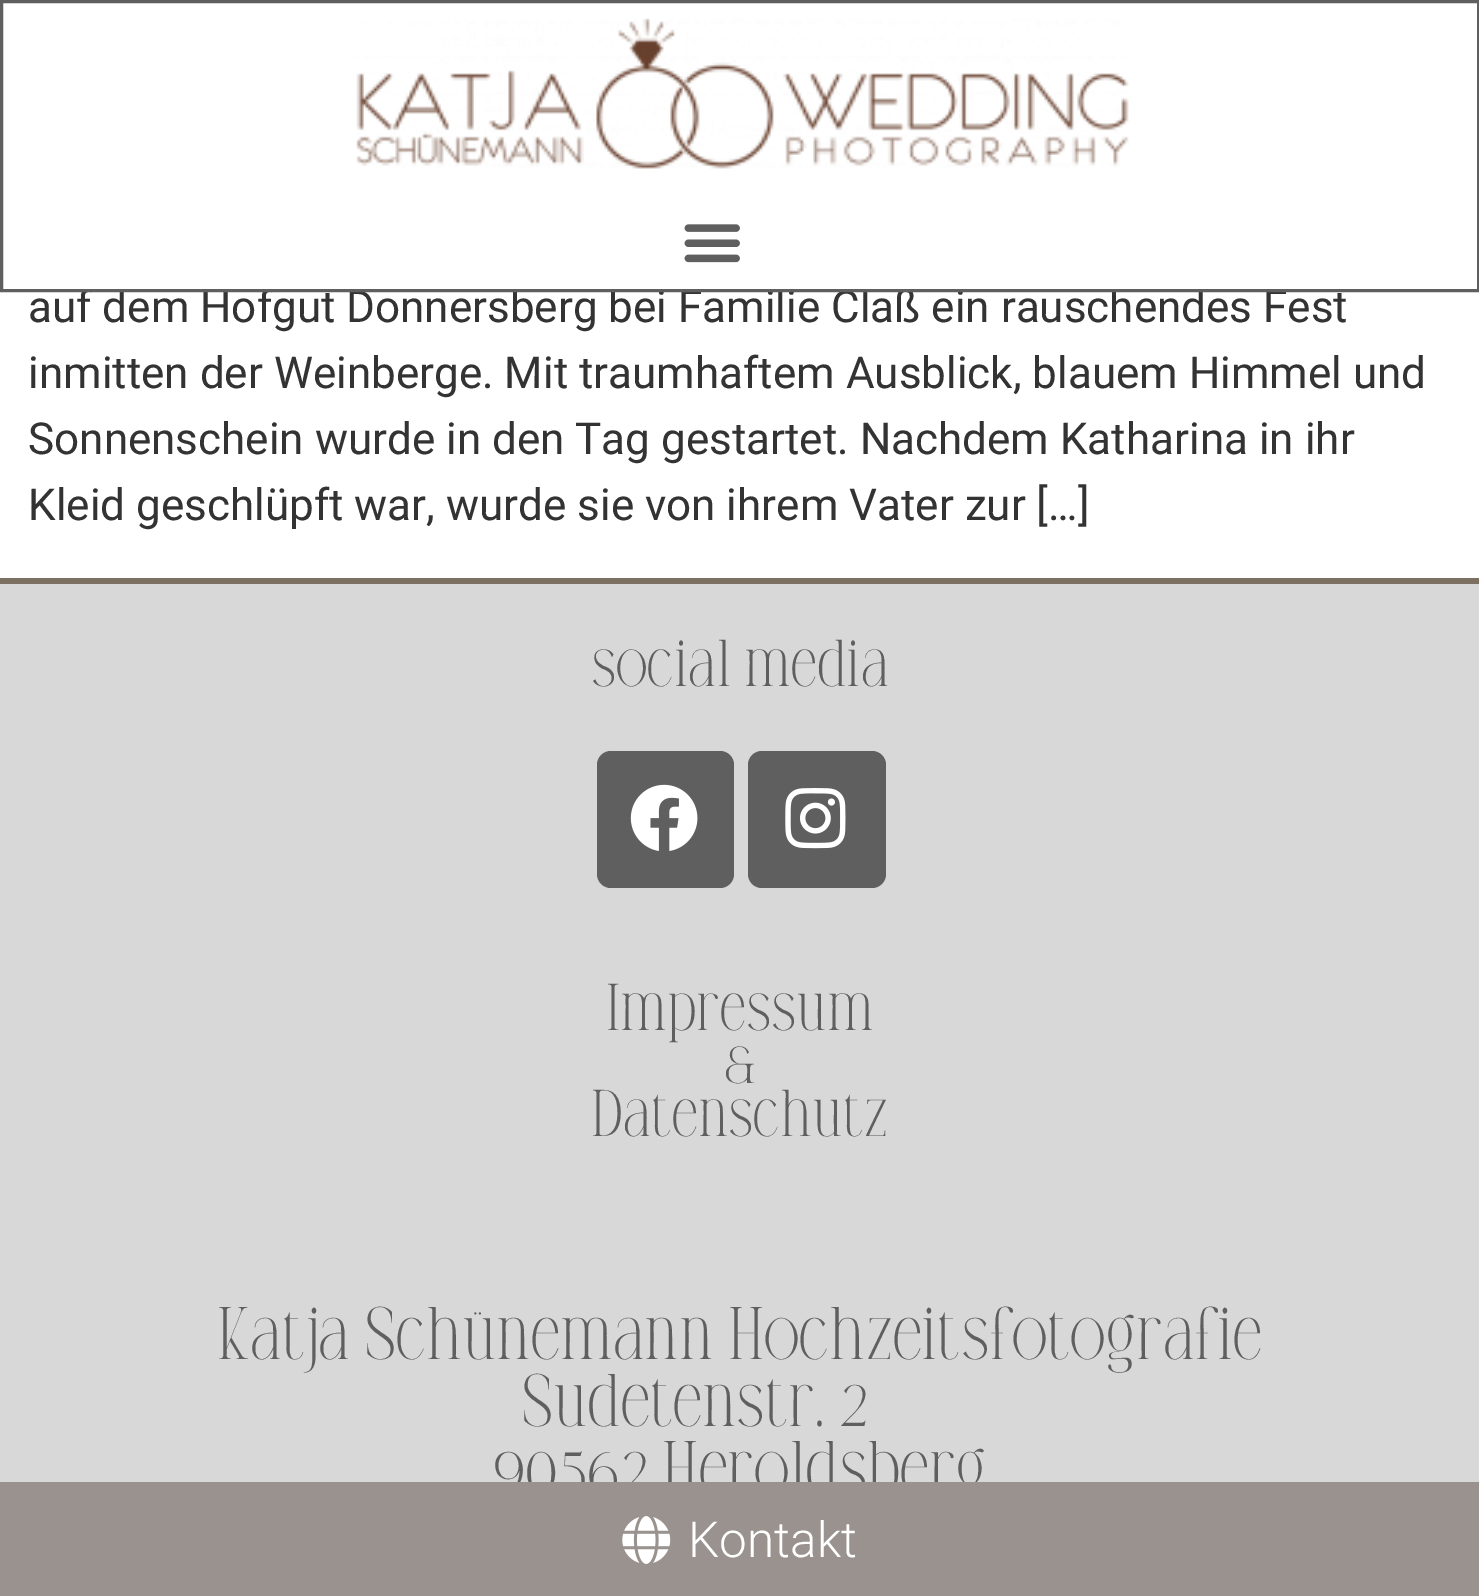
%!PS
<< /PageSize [1479 1596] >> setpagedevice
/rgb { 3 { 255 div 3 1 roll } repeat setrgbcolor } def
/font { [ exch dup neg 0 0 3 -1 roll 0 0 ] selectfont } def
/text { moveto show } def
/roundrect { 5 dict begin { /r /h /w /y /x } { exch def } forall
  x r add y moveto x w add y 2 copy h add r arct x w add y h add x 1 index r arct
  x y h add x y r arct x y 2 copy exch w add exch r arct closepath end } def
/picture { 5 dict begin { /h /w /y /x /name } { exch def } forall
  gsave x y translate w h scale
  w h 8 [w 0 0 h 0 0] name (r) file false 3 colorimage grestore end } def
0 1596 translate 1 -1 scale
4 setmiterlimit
255 255 255 rgb
0 0 1479 1596 rectfill
216 216 216 rgb
0 584 1479 898 rectfill
124 112 99 rgb
0 578 1479 6 rectfill
95 95 95 rgb
597 751 137 137 14 roundrect fill
(img_03.rgb) 630 784 68 67 picture
748 751 138 137 14 roundrect fill
(img_04.rgb) 785 788 61 61 picture
/Roboto-Regular 44 font
51 51 51 rgb
(auf dem Hofgut Donnersberg bei Familie Claß ein rauschendes Fest) 28 322 text
255 255 255 rgb
85 288 823 1 rectfill
95 95 95 rgb
3 setlinewidth
1.5 1.5 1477 289 rectstroke
(img_02.rgb) 684 224 56 39 picture
(img_01.rgb) 356 18 773 151 picture
51 51 51 rgb
(inmitten der Weinberge. Mit traumhaftem Ausblick, blauem Himmel und) 28 388 text
(Sonnenschein wurde in den Tag gestartet. Nachdem Katharina in ihr) 28 454 text
(Kleid geschlüpft war, wurde sie von ihrem Vater zur […]) 28 520 text
/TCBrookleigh-Regular 66 font
95 95 95 rgb
(social media) 591 686 text
(Impressum) 606 1030 text
(&) 724 1083 text
(Datenschutz) 591 1136 text
/TCBrookleigh-Regular 74.25 font
(Katja Schünemann Hochzeitsfotografie) 217 1359 text
(Sudetenstr. 2) 522 1426 text
(90562 Heroldsberg) 493 1493 text
153 146 142 rgb
0 1482 1479 114 rectfill
(img_05.rgb) 622 1516 49 48 picture
/Roboto-Light 49.5 font
255 255 255 rgb
(Kontakt) 688 1557 text
showpage
